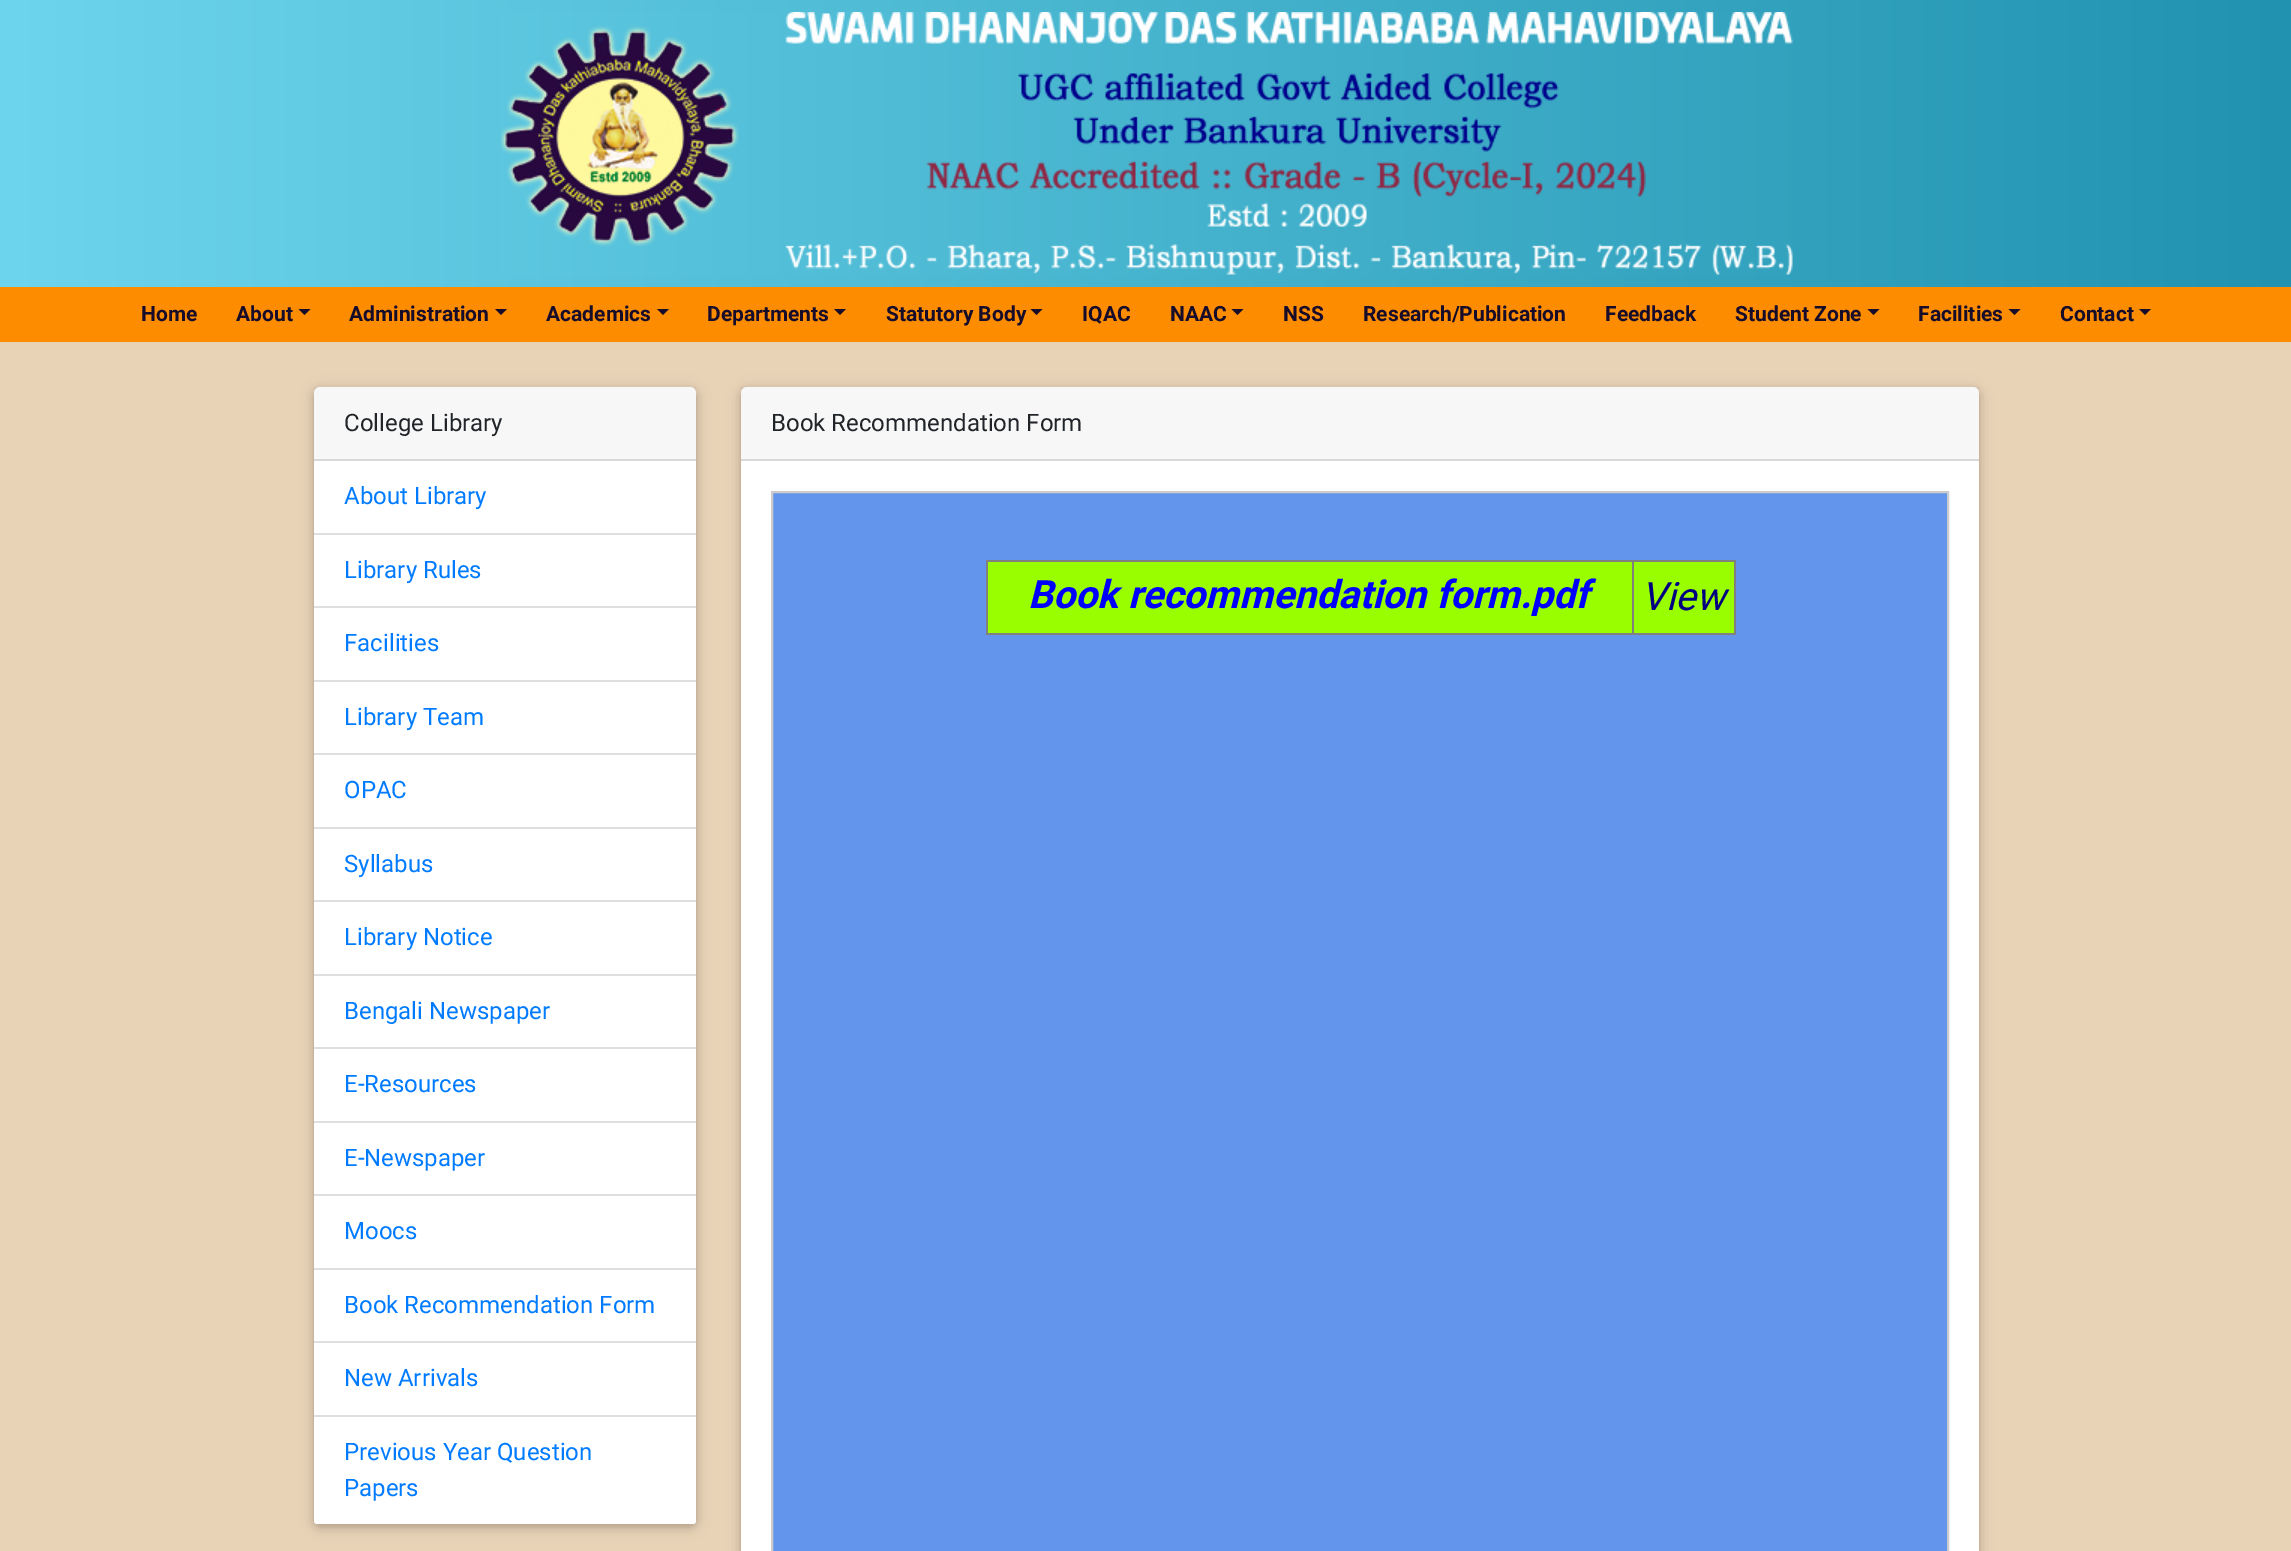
%!PS
<< /PageSize [2291 1551] /PageUsesTransparency true >> setpagedevice
/rgb { 3 { 255 div 3 1 roll } repeat setrgbcolor } def
/font { [ exch dup neg 0 0 3 -1 roll 0 0 ] selectfont } def
/text { moveto show } def
/alpha { dup .setfillconstantalpha .setstrokeconstantalpha } def
/roundrect { 5 dict begin { /r /h /w /y /x } { exch def } forall
  x r add y moveto x w add y 2 copy h add r arct x w add y h add x 1 index r arct
  x y h add x y r arct x y 2 copy exch w add exch r arct closepath end } def
/shadow { 12 dict begin { /a /b /q /h /w /y /x } { exch def } forall gsave /was 0 def
  9 -2 -9 { dup b mul 4 div /e exch def 1 sub .425 mul 2.718 exch exp 1 add a .99 .min exch div /now exch def
    1 1 now sub 1 was sub div sub alpha /was now def
    w h .min e 2 mul add 0 gt { x e sub y e sub w e 2 mul add h e 2 mul add
      q e add b .6 mul add w h .min 2 div e add .min 0 .max roundrect fill } if } for grestore end } def
/picture { 5 dict begin { /h /w /y /x /name } { exch def } forall
  gsave x y translate w h scale
  w h 8 [w 0 0 h 0 0] name (r) file false 3 colorimage grestore end } def
0 .pushpdf14devicefilter
0 1551 translate 1 -1 scale
4 setmiterlimit
255 255 255 rgb
0 0 2291 1551 rectfill
gsave 0 0 moveto 2291 0 rlineto 0 287 rlineto -2291 0 rlineto closepath clip newpath
<< /ShadingType 2 /ColorSpace /DeviceRGB /Coords [0 143 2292 143] /Extend [true true] /Function << /FunctionType 2 /Domain [0 1] /C0 [0.427 0.835 0.929] /C1 [0.129 0.576 0.69] /N 1 >> >> shfill grestore
(img_01.rgb) 500 12 1293 263 picture
253 140 0 rgb
0 287 2291 55 rectfill
23 13 42 rgb
298.5 309 moveto 12 0 rlineto -6 6 rlineto closepath fill
495 309 moveto 12 0 rlineto -6 6 rlineto closepath fill
657 309 moveto 12 0 rlineto -6 6 rlineto closepath fill
834 309 moveto 12 0 rlineto -6 6 rlineto closepath fill
1030.5 309 moveto 12 0 rlineto -6 6 rlineto closepath fill
1231.5 309 moveto 12 0 rlineto -6 6 rlineto closepath fill
1867.5 309 moveto 12 0 rlineto -6 6 rlineto closepath fill
2008.5 309 moveto 12 0 rlineto -6 6 rlineto closepath fill
2139 309 moveto 12 0 rlineto -6 6 rlineto closepath fill
233 211 183 rgb
0 342 2291 1209 rectfill
0 0 0 rgb
314 390 382 1137 6 7.5 0.12 shadow
314 390 382 1137 6 4 0.16 shadow
255 255 255 rgb
314 387 382 1137 6 roundrect fill
0.03 alpha
0 0 0 rgb
314 387 382 72 rectfill
1 alpha
216 216 216 rgb
314 459 382 2 rectfill
223 223 223 rgb
314 533 382 2 rectfill
314 606 382 2 rectfill
314 680 382 2 rectfill
314 753 382 2 rectfill
314 827 382 2 rectfill
314 900 382 2 rectfill
314 974 382 2 rectfill
314 1047 382 2 rectfill
314 1121 382 2 rectfill
314 1194 382 2 rectfill
314 1268 382 2 rectfill
314 1341 382 2 rectfill
255 255 255 rgb
314 1415 moveto 382 0 rlineto 0 106 rlineto 0 1.5 -1.5 3 -3 3 rcurveto -376 0 rlineto -1.5 0 -3 -1.5 -3 -3 rcurveto closepath fill
223 223 223 rgb
314 1415 382 2 rectfill
0 0 0 rgb
741 390 1238 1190 6 7.5 0.12 shadow
741 390 1238 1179 6 4 0.16 shadow
255 255 255 rgb
741 387 1238 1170 6 roundrect fill
0.03 alpha
0 0 0 rgb
741 387 1238 72 rectfill
1 alpha
216 216 216 rgb
741 459 1238 2 rectfill
100 149 237 rgb
772 492 moveto 1176 0 rlineto 0 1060 rlineto -1176 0 rlineto closepath gsave fill grestore
204 204 204 rgb
2 setlinewidth
stroke
128 128 128 rgb
986 560 750 2 rectfill
1734 560 2 75 rectfill
986 633 750 2 rectfill
986 560 2 75 rectfill
153 255 0 rgb
988 562 644 71 rectfill
1634 562 100 71 rectfill
128 128 128 rgb
1632 560 2 75 rectfill
/Roboto-Bold 21 font
23 13 42 rgb
(Home) 141 321 text
(About) 236 321 text
(Administration) 349 321 text
(Academics) 546 321 text
(Departments) 707 321 text
(Statutory Body) 886 321 text
(IQAC) 1082 321 text
(NAAC) 1170 321 text
(NSS) 1283 321 text
(Research/Publication) 1363 321 text
(Feedback) 1605 321 text
(Student Zone) 1735 321 text
(Facilities) 1918 321 text
(Contact) 2060 321 text
/Roboto-Regular 24 font
33 37 41 rgb
(College Library) 344 431 text
0 123 255 rgb
(About Library) 344 504 text
(Library Rules) 344 578 text
(Facilities) 344 651 text
(Library Team) 344 725 text
(OPAC) 344 798 text
(Syllabus) 344 872 text
(Library Notice) 344 945 text
(Bengali Newspaper) 344 1019 text
(E-Resources) 344 1092 text
(E-Newspaper) 344 1166 text
(Moocs) 344 1239 text
(Book Recommendation Form) 344 1313 text
(New Arrivals) 344 1386 text
(Previous Year Question) 344 1460 text
(Papers) 344 1496 text
33 37 41 rgb
(Book Recommendation Form) 771 431 text
/Roboto-BoldItalic 39 font
0 0 255 rgb
(Book recommendation form.pdf) 1028 608 text
/Roboto-Italic 39 font
0 0 128 rgb
(View) 1641 610 text
.poppdf14devicefilter showpage
